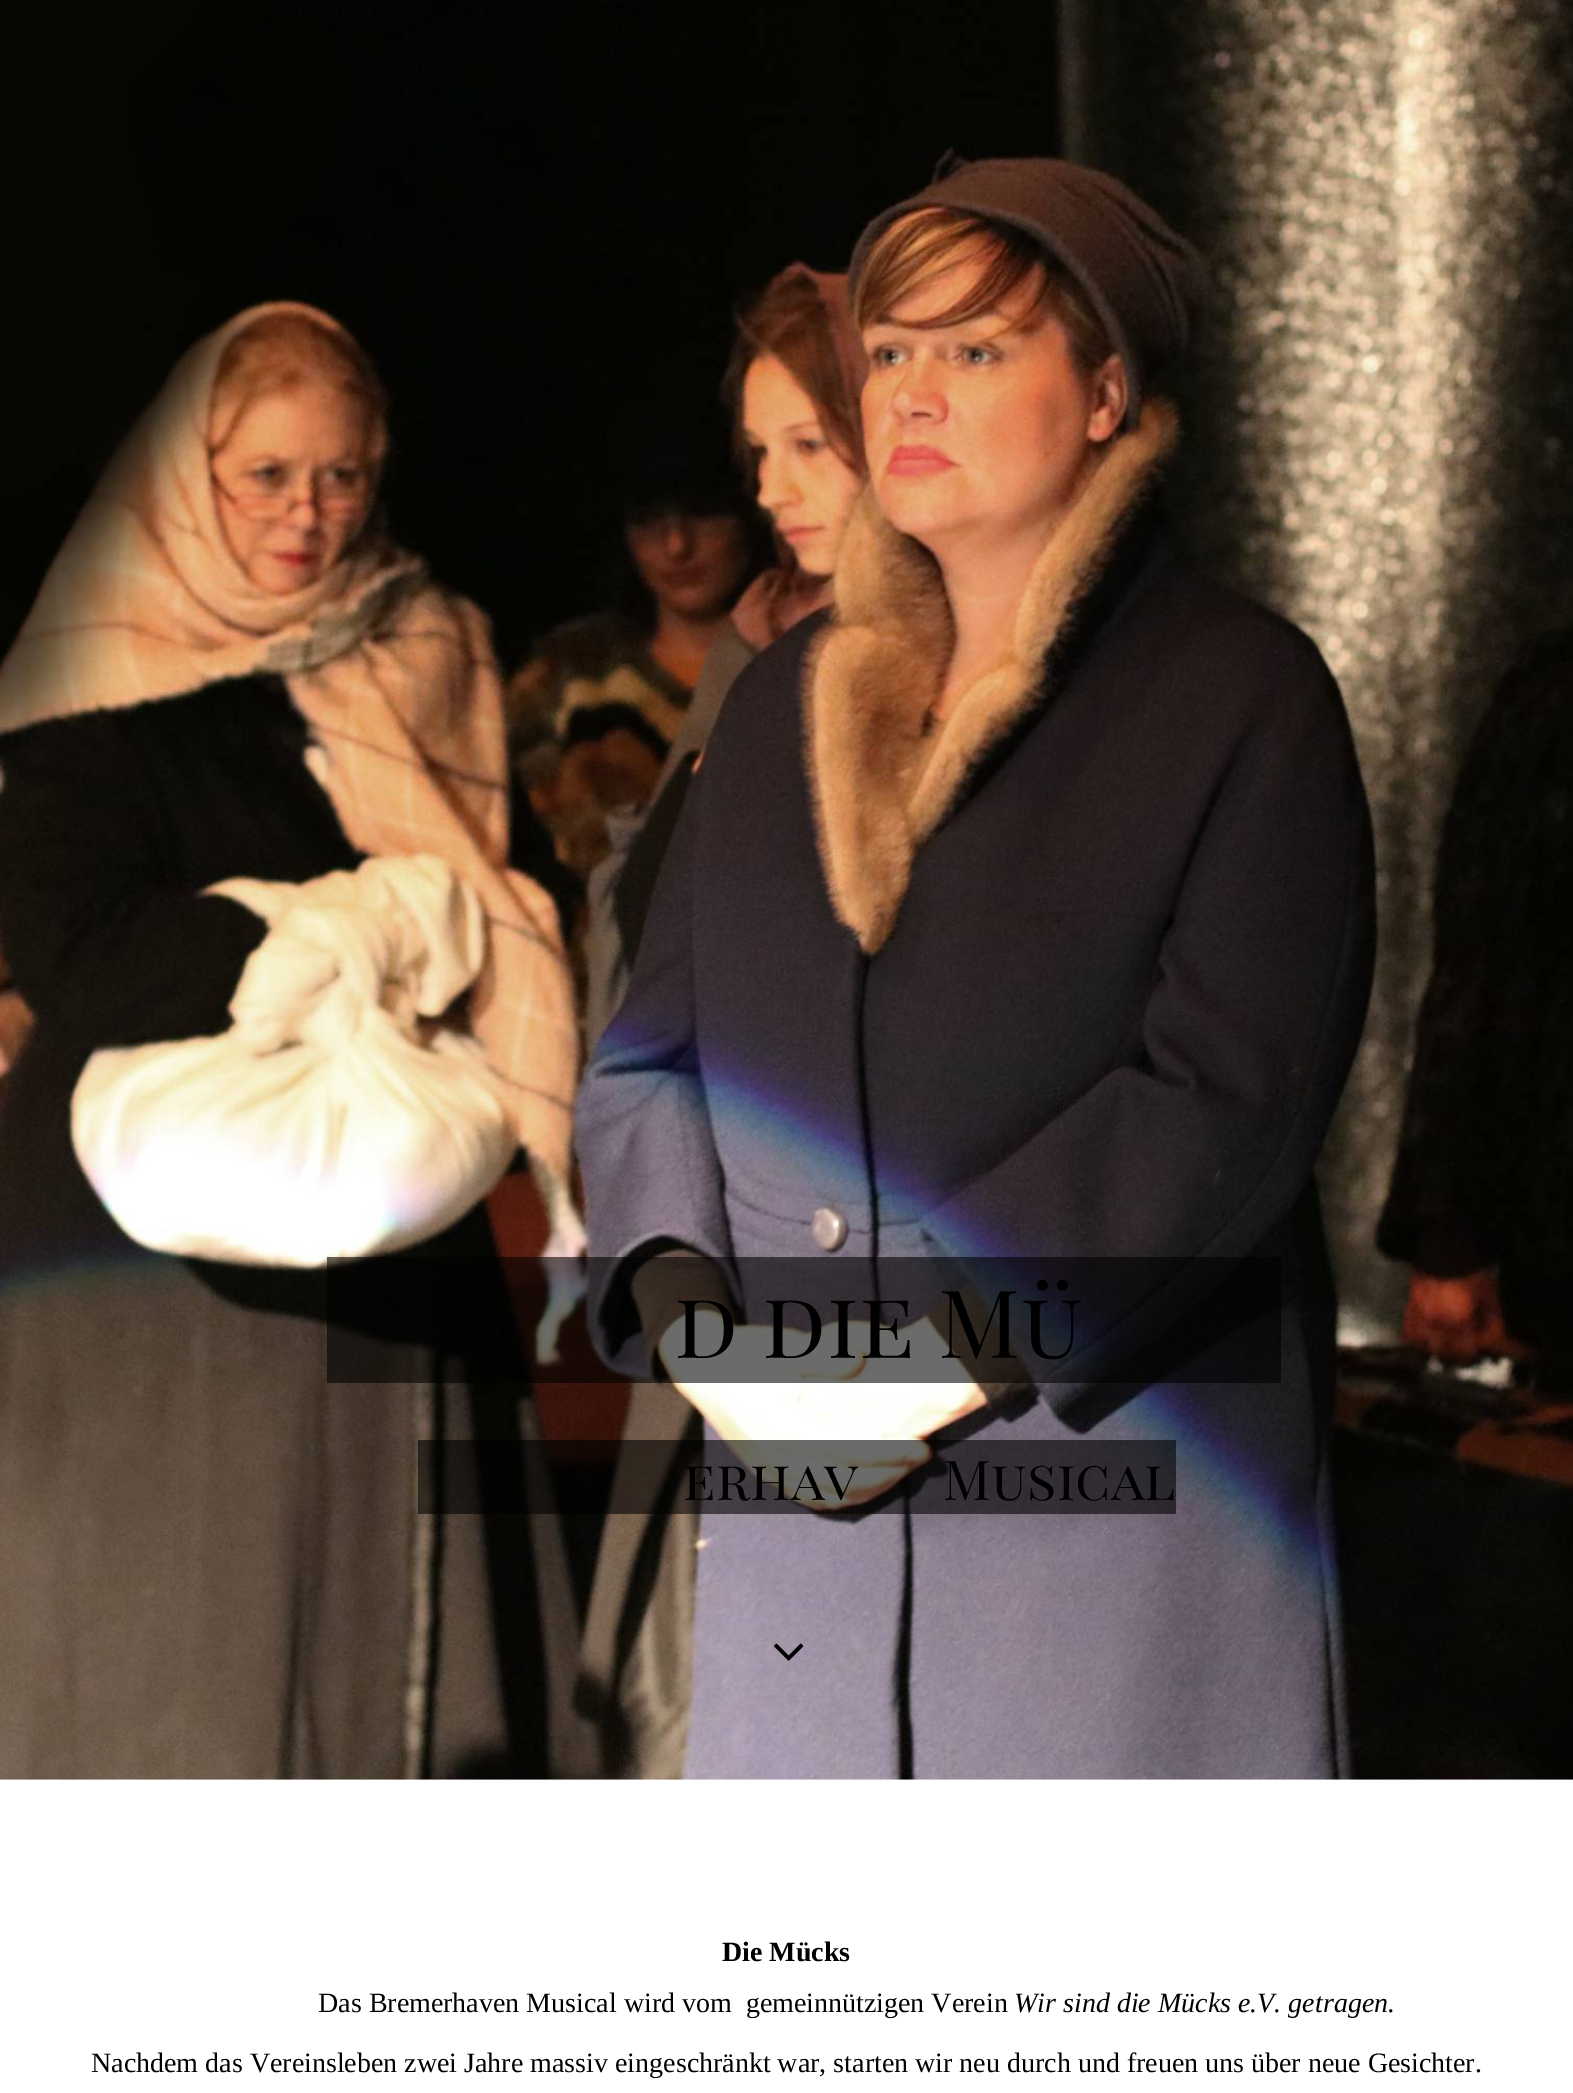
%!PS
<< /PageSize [1573 2093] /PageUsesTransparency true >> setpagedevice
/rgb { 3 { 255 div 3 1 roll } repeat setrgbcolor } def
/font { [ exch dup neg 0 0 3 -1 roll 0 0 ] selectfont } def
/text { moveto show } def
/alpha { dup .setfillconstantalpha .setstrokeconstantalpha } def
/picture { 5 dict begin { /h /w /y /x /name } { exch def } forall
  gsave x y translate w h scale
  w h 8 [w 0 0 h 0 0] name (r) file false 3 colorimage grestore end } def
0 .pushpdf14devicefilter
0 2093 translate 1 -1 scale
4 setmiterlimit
255 255 255 rgb
0 0 1573 2093 rectfill
(img_01.rgb) 0 0 1573 1780 picture
0.58 alpha
0 0 0 rgb
327 1257 954 126 rectfill
418 1440 758 74 rectfill
1 alpha
(img_02.rgb) 774 1643 30 18 picture
/PlayfairDisplaySC-Regular 94.5 font
(d die Mü) 674 1358 text
/PlayfairDisplaySC-Regular 55 font
(erhav) 683 1500 text
(Musical) 943 1500 text
/LiberationSerif-Bold 28 font
(Die Mücks) 722 1961 text
/LiberationSerif-Regular 28 font
(Das Bremerhaven Musical wird vom  gemeinnützigen Verein) 318 2012 text
/LiberationSerif-Italic 28 font
(Wir sind die Mücks e.V. getragen.) 1014 2012 text
/LiberationSerif-Regular 28 font
(Nachdem das Vereinsleben zwei Jahre massiv eingeschränkt war, starten wir neu durch und freuen uns über neue Gesichter.) 91 2072 text
.poppdf14devicefilter showpage
